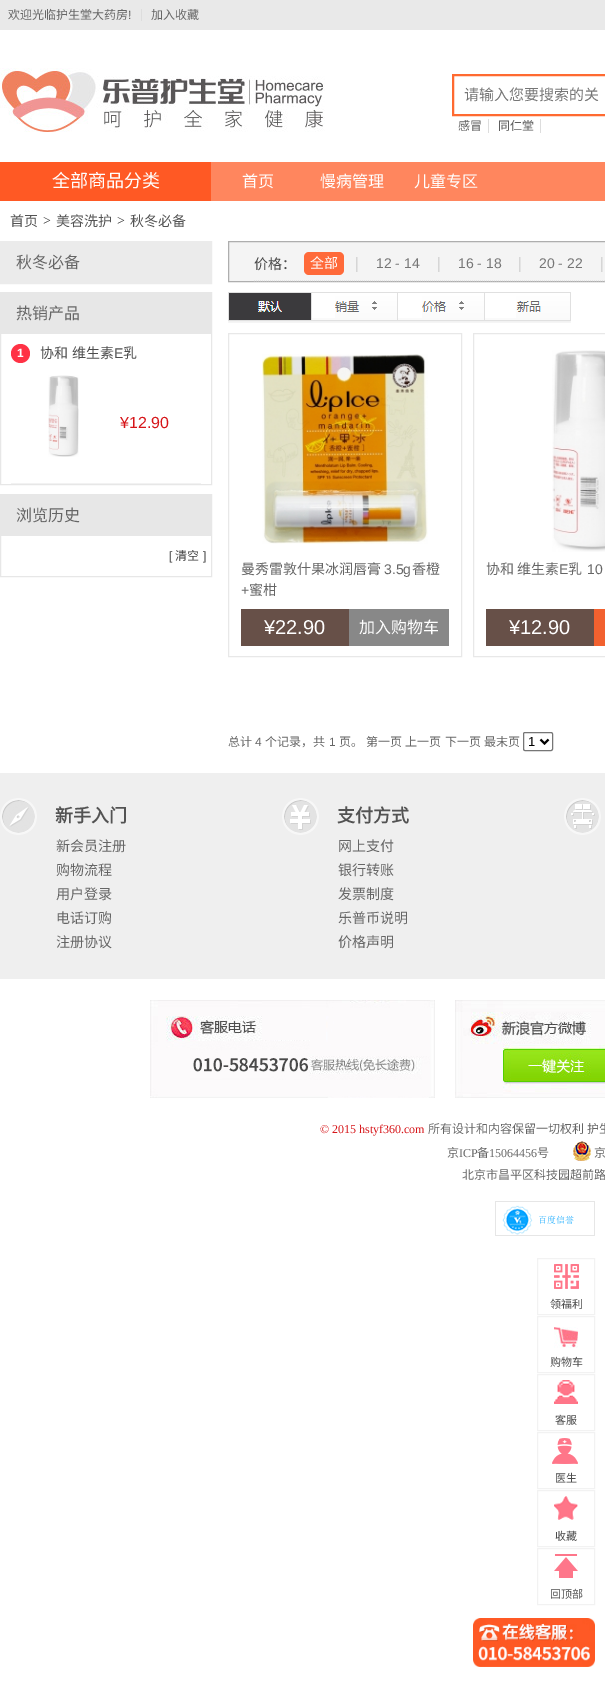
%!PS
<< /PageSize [605 1705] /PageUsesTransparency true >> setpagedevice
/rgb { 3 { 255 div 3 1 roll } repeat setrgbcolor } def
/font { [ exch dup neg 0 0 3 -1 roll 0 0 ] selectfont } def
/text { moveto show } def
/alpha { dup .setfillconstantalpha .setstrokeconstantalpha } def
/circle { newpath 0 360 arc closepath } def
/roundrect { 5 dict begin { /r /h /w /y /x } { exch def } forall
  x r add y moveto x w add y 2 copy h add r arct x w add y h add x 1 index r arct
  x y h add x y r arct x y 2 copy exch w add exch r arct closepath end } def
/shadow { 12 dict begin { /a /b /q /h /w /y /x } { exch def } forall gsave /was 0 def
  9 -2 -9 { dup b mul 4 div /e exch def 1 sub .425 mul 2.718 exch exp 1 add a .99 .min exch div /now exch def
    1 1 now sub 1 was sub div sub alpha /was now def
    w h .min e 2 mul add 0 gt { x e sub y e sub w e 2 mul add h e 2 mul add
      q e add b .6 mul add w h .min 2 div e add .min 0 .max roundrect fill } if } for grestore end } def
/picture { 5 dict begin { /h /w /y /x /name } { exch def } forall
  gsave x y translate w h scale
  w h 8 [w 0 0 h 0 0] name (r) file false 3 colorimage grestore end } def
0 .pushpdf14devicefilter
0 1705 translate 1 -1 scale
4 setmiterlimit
255 255 255 rgb
0 0 605 1705 rectfill
233 233 233 rgb
0 0 605 30 rectfill
221 221 221 rgb
141 9 1 12 rectfill
(img_01.rgb) 0 68 325 64 picture
255 106 48 rgb
2 setlinewidth
453 75 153 40 rectstroke
221 221 221 rgb
488 119 1 14 rectfill
540 119 1 14 rectfill
255 134 94 rgb
211 162 394 39 rectfill
255 89 36 rgb
0 162 211 39 rectfill
235 235 235 rgb
1 setlinewidth
0.5 241.5 211 42 rectstroke
1 242 210 41 rectfill
231 231 231 rgb
0.5 292.5 211 192 rectstroke
1 293 210 41 rectfill
242 242 242 rgb
11 483 190 1 rectfill
255 50 69 rgb
20.5 353.5 9.5 circle fill
(img_02.rgb) 48 375 31 82 picture
231 231 231 rgb
0.5 494.5 211 82 rectstroke
1 495 210 41 rectfill
244 244 244 rgb
228.5 241.5 moveto 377 0 rlineto 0 40 rlineto -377 0 rlineto closepath gsave fill grestore
174 174 174 rgb
stroke
229 229 229 rgb
[1 1] 0 setdash
254 280.5 moveto 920 0 rlineto stroke
(img_03.rgb) 356 257 2 15 picture
255 106 58 rgb
304 252 40 23 5 roundrect fill
(img_03.rgb) 438 257 2 15 picture
(img_03.rgb) 519 257 2 15 picture
(img_03.rgb) 601 257 2 15 picture
gsave
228 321 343 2 rectclip
0 0 0 rgb
228 294 343 29 0 1 0.05 shadow
grestore
250 250 250 rgb
312 318 204 2 rectfill
224 224 224 rgb
228 292 343 1 rectfill
228 320 343 1 rectfill
228 292 1 29 rectfill
(img_04.rgb) 229 293 83 27 picture
(img_05.rgb) 335 293 63 27 picture
(img_06.rgb) 422 293 63 27 picture
(img_07.rgb) 516 293 55 27 picture
232 232 232 rgb
[] 0 setdash
228.5 333.5 233 323 rectstroke
(img_08.rgb) 262 354 166 190 picture
103 80 72 rgb
241 609 108 37 rectfill
136 136 136 rgb
349 609 100 37 rectfill
232 232 232 rgb
473.5 333.5 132 323 rectstroke
(img_09.rgb) 552 350 53 202 picture
103 80 72 rgb
486 609 108 37 rectfill
242 97 47 rgb
594 609 11 37 rectfill
118 118 118 rgb
523.5 732.5 29 18 1.5 roundrect stroke
0 0 0 rgb
2 setlinewidth
540.5 739.5 moveto 4 4 rlineto 4 -4 rlineto stroke
239 239 239 rgb
0 773 605 206 rectfill
(img_10.rgb) 0 798 37 37 picture
(img_11.rgb) 282 798 37 37 picture
(img_12.rgb) 564 798 37 37 picture
(img_13.rgb) 150 1000 285 98 picture
(img_14.rgb) 455 1000 150 98 picture
(img_15.rgb) 503 1049 102 35 picture
(img_16.rgb) 573 1141 18 20 picture
(img_17.rgb) 495 1201 100 35 picture
(img_18.rgb) 554 1264 25 25 picture
242 242 242 rgb
1 setlinewidth
537.5 1258.5 57 56 rectstroke
(img_19.rgb) 554 1327 24 21 picture
537.5 1316.5 57 56 rectstroke
(img_20.rgb) 554 1380 24 24 picture
537.5 1374.5 57 56 rectstroke
(img_21.rgb) 552 1438 26 26 picture
537.5 1432.5 57 56 rectstroke
(img_22.rgb) 554 1496 24 24 picture
537.5 1490.5 57 56 rectstroke
(img_23.rgb) 554 1554 24 24 picture
537.5 1548.5 57 56 rectstroke
(img_24.rgb) 473 1618 122 49 picture
/NotoSansCJKSC-Regular 12 font
102 102 102 rgb
(欢迎光临护生堂大药房) 8 19 text
/LiberationSans-Regular 12 font
(!) 128 19 text
/NotoSansCJKSC-Regular 12 font
(加入收藏) 151 19 text
/NotoSansCJKSC-Regular 15 font
118 118 118 rgb
(请输入您要搜索的关) 464 100 text
/NotoSansCJKSC-Regular 12 font
94 94 94 rgb
(感冒) 458 130 text
(同仁堂) 498 130 text
/NotoSansCJKSC-Regular 18 font
255 255 255 rgb
(全部商品分类) 52 187 text
/NotoSansCJKSC-Regular 16 font
(首页) 242 187 text
(慢病管理) 320 187 text
(儿童专区) 414 187 text
/NotoSansCJKSC-Regular 14 font
83 83 83 rgb
(首页) 10 226 text
/LiberationSerif-Regular 14 font
51 51 51 rgb
(>) 43 225 text
/NotoSansCJKSC-Regular 14 font
83 83 83 rgb
(美容洗护) 56 226 text
/LiberationSerif-Regular 14 font
51 51 51 rgb
(>) 117 225 text
/NotoSansCJKSC-Regular 14 font
83 83 83 rgb
(秋冬必备) 130 226 text
/NotoSansCJKSC-Regular 16 font
102 102 102 rgb
(秋冬必备) 16 268 text
(热销产品) 16 319 text
/LiberationSans-Bold 12 font
255 255 255 rgb
(1) 17 357 text
/NotoSansCJKSC-Regular 14 font
76 76 76 rgb
40 358 moveto 1 0 32 (协和 维生素) widthshow
/LiberationSans-Regular 14 font
(E) 114 358 text
/NotoSansCJKSC-Regular 14 font
(乳) 123 358 text
/LiberationSans-Regular 16 font
214 21 25 rgb
(¥12.90) 120 428 text
/NotoSansCJKSC-Regular 16 font
102 102 102 rgb
(浏览历史) 16 521 text
/LiberationSans-Regular 12 font
63 63 63 rgb
([) 169 560 text
/NotoSansCJKSC-Regular 12 font
(清空) 175 560 text
/LiberationSans-Regular 12 font
(]) 203 560 text
/NotoSansCJKSC-Regular 14 font
76 76 76 rgb
(价格：) 254 269 text
255 255 255 rgb
(全部) 310 268 text
/LiberationSans-Regular 14 font
118 118 118 rgb
(12 - 14) 376 268 text
(16 - 18) 458 268 text
(20 - 22) 539 268 text
/NotoSansCJKSC-Regular 14 font
102 102 102 rgb
(曼秀雷敦什果冰润唇膏) 241 574 text
/LiberationSans-Regular 14 font
(3.5g) 384 574 text
/NotoSansCJKSC-Regular 14 font
(香橙) 412 574 text
/LiberationSans-Regular 14 font
(+) 241 595 text
/NotoSansCJKSC-Regular 14 font
(蜜柑) 249 595 text
/LiberationSans-Regular 20 font
255 255 255 rgb
(¥22.90) 264 634 text
/NotoSansCJKSC-Regular 16 font
(加入购物车) 359 633 text
/NotoSansCJKSC-Regular 14 font
102 102 102 rgb
(协和 维生素) 486 574 text
/LiberationSans-Regular 14 font
(E) 559 574 text
/NotoSansCJKSC-Regular 14 font
(乳) 568 574 text
/LiberationSans-Regular 14 font
(10) 587 574 text
/LiberationSans-Regular 20 font
255 255 255 rgb
(¥12.90) 509 634 text
/NotoSansCJKSC-Regular 12 font
102 102 102 rgb
(总计) 228 746 text
/LiberationSans-Regular 12 font
(4) 255 746 text
/NotoSansCJKSC-Regular 12 font
(个记录，共) 265 746 text
/LiberationSans-Regular 12 font
(1) 329 746 text
/NotoSansCJKSC-Regular 12 font
(页。) 339 746 text
(第一页) 366 746 text
(上一页) 405 746 text
(下一页) 445 746 text
(最末页) 484 746 text
/LiberationSans-Regular 13 font
0 0 0 rgb
(1) 528 746 text
/NotoSansCJKSC-Bold 18 font
83 83 83 rgb
(新手入门) 55 822 text
/NotoSansCJKSC-Regular 14 font
102 102 102 rgb
(新会员注册) 56 851 text
(购物流程) 56 875 text
(用户登录) 56 899 text
(电话订购) 56 923 text
(注册协议) 56 947 text
/NotoSansCJKSC-Bold 18 font
83 83 83 rgb
(支付方式) 337 822 text
/NotoSansCJKSC-Regular 14 font
102 102 102 rgb
(网上支付) 338 851 text
(银行转账) 338 875 text
(发票制度) 338 899 text
(乐普币说明) 338 923 text
(价格声明) 338 947 text
/LiberationSerif-Regular 12 font
214 21 25 rgb
(© 2015 hstyf360.com) 320 1133 text
/NotoSansCJKSC-Regular 12 font
102 102 102 rgb
(所有设计和内容保留一切权利) 428 1133 text
(护生) 587 1133 text
(京) 447 1157 text
/LiberationSerif-Regular 12 font
(ICP) 459 1157 text
/NotoSansCJKSC-Regular 12 font
(备) 477 1157 text
/LiberationSerif-Regular 12 font
(15064456) 489 1157 text
/NotoSansCJKSC-Regular 12 font
(号) 537 1157 text
(京) 594 1157 text
(北京市昌平区科技园超前路) 462 1179 text
/NotoSansCJKSC-Regular 11 font
76 76 76 rgb
(领福利) 550 1308 text
(购物车) 550 1366 text
(客服) 555 1424 text
(医生) 555 1482 text
(收藏) 555 1540 text
(回顶部) 550 1598 text
.poppdf14devicefilter showpage
